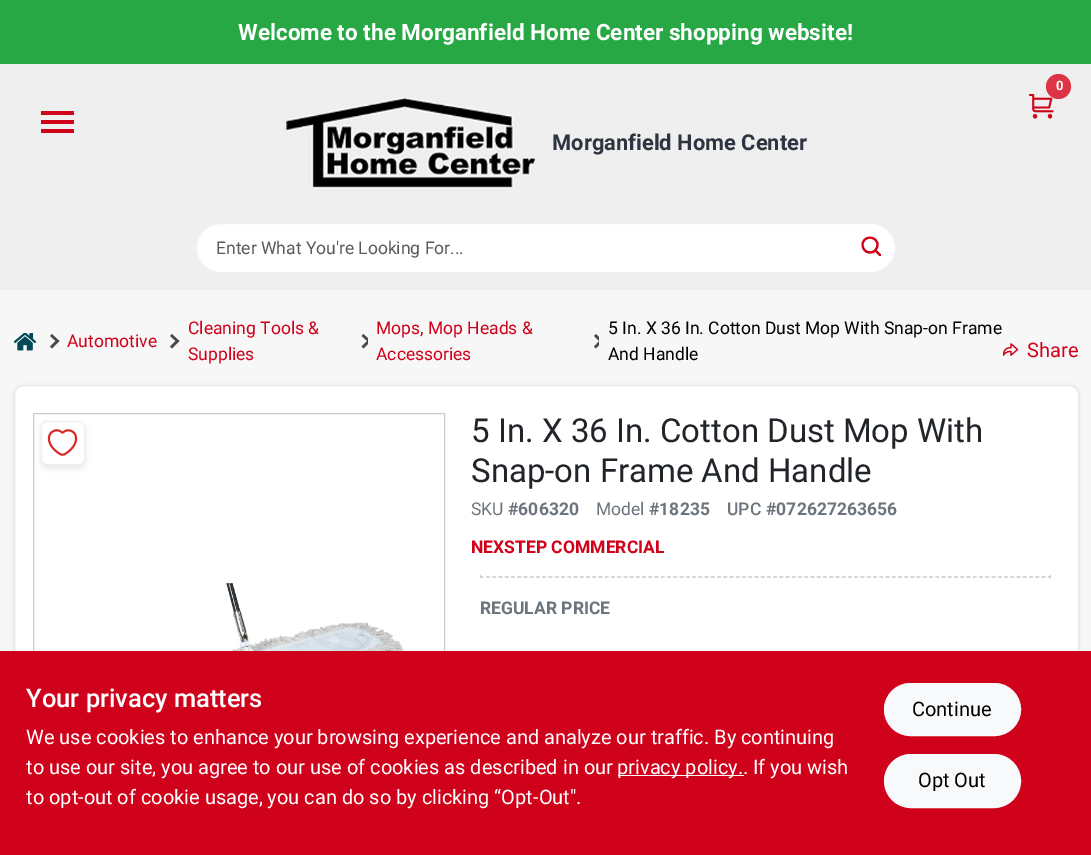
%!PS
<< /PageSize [1091 855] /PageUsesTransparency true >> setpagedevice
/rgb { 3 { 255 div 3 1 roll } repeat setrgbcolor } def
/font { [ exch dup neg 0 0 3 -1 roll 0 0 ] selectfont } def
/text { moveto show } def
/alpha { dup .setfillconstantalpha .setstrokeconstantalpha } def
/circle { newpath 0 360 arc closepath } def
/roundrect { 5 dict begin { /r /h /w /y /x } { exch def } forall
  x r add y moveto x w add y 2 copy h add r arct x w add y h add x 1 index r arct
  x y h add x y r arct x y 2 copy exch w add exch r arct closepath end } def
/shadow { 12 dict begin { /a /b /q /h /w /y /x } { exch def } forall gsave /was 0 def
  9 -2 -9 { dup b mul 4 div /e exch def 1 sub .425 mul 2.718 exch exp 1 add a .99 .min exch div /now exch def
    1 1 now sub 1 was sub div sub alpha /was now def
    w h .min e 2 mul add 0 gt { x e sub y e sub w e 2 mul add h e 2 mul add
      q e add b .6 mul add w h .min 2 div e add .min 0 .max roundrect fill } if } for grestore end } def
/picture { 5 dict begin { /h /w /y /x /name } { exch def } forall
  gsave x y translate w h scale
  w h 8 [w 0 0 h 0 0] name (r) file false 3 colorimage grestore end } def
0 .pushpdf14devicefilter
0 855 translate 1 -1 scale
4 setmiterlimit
247 247 247 rgb
0 0 1091 855 rectfill
40 167 69 rgb
0 0 1091 64 rectfill
239 239 239 rgb
0 64 1091 226 rectfill
(img_01.rgb) 1029 94 25 25 picture
220 53 69 rgb
1058.5 86.5 12.5 circle fill
208 2 27 rgb
41 111 33 4 rectfill
41 120 33 4 rectfill
41 129 33 4 rectfill
(img_02.rgb) 285 97 250 92 picture
255 255 255 rgb
196.5 223.5 699 49 24.5 roundrect gsave fill grestore
240 240 240 rgb
stroke
(img_03.rgb) 861 236 21 21 picture
(img_04.rgb) 14 333 22 18 picture
73 73 73 rgb
2.5 setlinewidth
51 335 moveto 6.5 6 rlineto -6.5 6.5 rlineto stroke
171 335 moveto 6.5 6 rlineto -6.5 6.5 rlineto stroke
gsave
356 333 12 17 rectclip
362.5 335 moveto 6.5 6 rlineto -6.5 6.5 rlineto stroke
grestore
gsave
589 333 10 17 rectclip
595 335 moveto 6 6 rlineto -6 6.5 rlineto stroke
grestore
(img_05.rgb) 1003 343 16 13 picture
0 0 0 rgb
14 386 1065 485 10 2 0.1 shadow
255 255 255 rgb
14.5 385.5 1064 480 9.5 roundrect gsave fill grestore
226 232 240 rgb
1 setlinewidth
stroke
204 204 204 rgb
33.5 413.5 411 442 rectstroke
0 0 0 rgb
41 424 44 44 6 3 0.1 shadow
255 255 255 rgb
41.5 421.5 43 43 5.5 roundrect gsave fill grestore
240 240 240 rgb
stroke
(img_06.rgb) 47 429 31 27 picture
(img_07.rgb) 73 582 331 69 picture
200 201 202 rgb
1050 575 1 3 rectfill
1.2 setlinewidth
[3.75 2.49] 0 setdash
480 577 moveto 571 0 rlineto stroke
480 575 1 3 rectfill
208 2 27 rgb
0 651 1091 204 rectfill
255 255 255 rgb
618 775 126 1 rectfill
248 249 250 rgb
884.5 683.5 136 52 26 roundrect gsave fill grestore
1 setlinewidth
[] 0 setdash
stroke
884.5 754.5 136 53 26.5 roundrect gsave fill grestore
stroke
/Roboto-Bold 22.5 font
255 255 255 rgb
(Welcome to the Morganfield Home Center shopping website!) 238 40 text
/Roboto-Bold 13 font
1056 90 moveto -1 0 (0) ashow
/Roboto-Bold 21.9 font
47 53 64 rgb
(Morganfield Home Center) 552 150 text
/Roboto-Regular 17.5 font
89 92 95 rgb
(Enter What You're Looking For...) 216 254 text
208 2 27 rgb
(Automotive) 67 347 text
(Cleaning Tools &) 188 334 text
(Supplies) 188 360 text
(Mops, Mop Heads &) 376 334 text
(Accessories) 376 360 text
0 0 0 rgb
(5 In. X 36 In. Cotton Dust Mop With Snap-on Frame) 608 334 text
(And Handle) 608 360 text
/Roboto-Regular 20 font
208 2 27 rgb
(Share) 1027 357 text
/Roboto-Regular 33 font
33 37 41 rgb
(5 In. X 36 In. Cotton Dust Mop With) 471 442 text
(Snap-on Frame And Handle) 471 482 text
/Roboto-Regular 17.5 font
108 117 125 rgb
(SKU) 471 515 text
/Roboto-Bold 17.5 font
(#606320) 508 515 text
/Roboto-Regular 17.5 font
(Model) 596 515 text
/Roboto-Bold 17.5 font
(#18235) 649 515 text
/Roboto-Medium 17.5 font
(UPC) 727 515 text
/Roboto-Bold 17.5 font
(#072627263656) 766 515 text
208 2 27 rgb
(NEXSTEP COMMERCIAL) 471 553 text
108 117 125 rgb
(REGULAR PRICE) 480 614 text
/Roboto-Medium 25.5 font
255 255 255 rgb
(Your privacy matters) 26 707 text
/Roboto-Regular 20 font
(We use cookies to enhance your browsing experience and analyze our traffic. By continuing) 26 744 text
(to use our site, you agree to our use of cookies as described in our) 26 774 text
(privacy policy.. If you wish) 617 774 text
(to opt-out of cookie usage, you can do so by clicking “Opt-Out".) 26 804 text
0 0 0 rgb
(Continue) 912 716 text
(Opt Out) 918 787 text
.poppdf14devicefilter showpage
